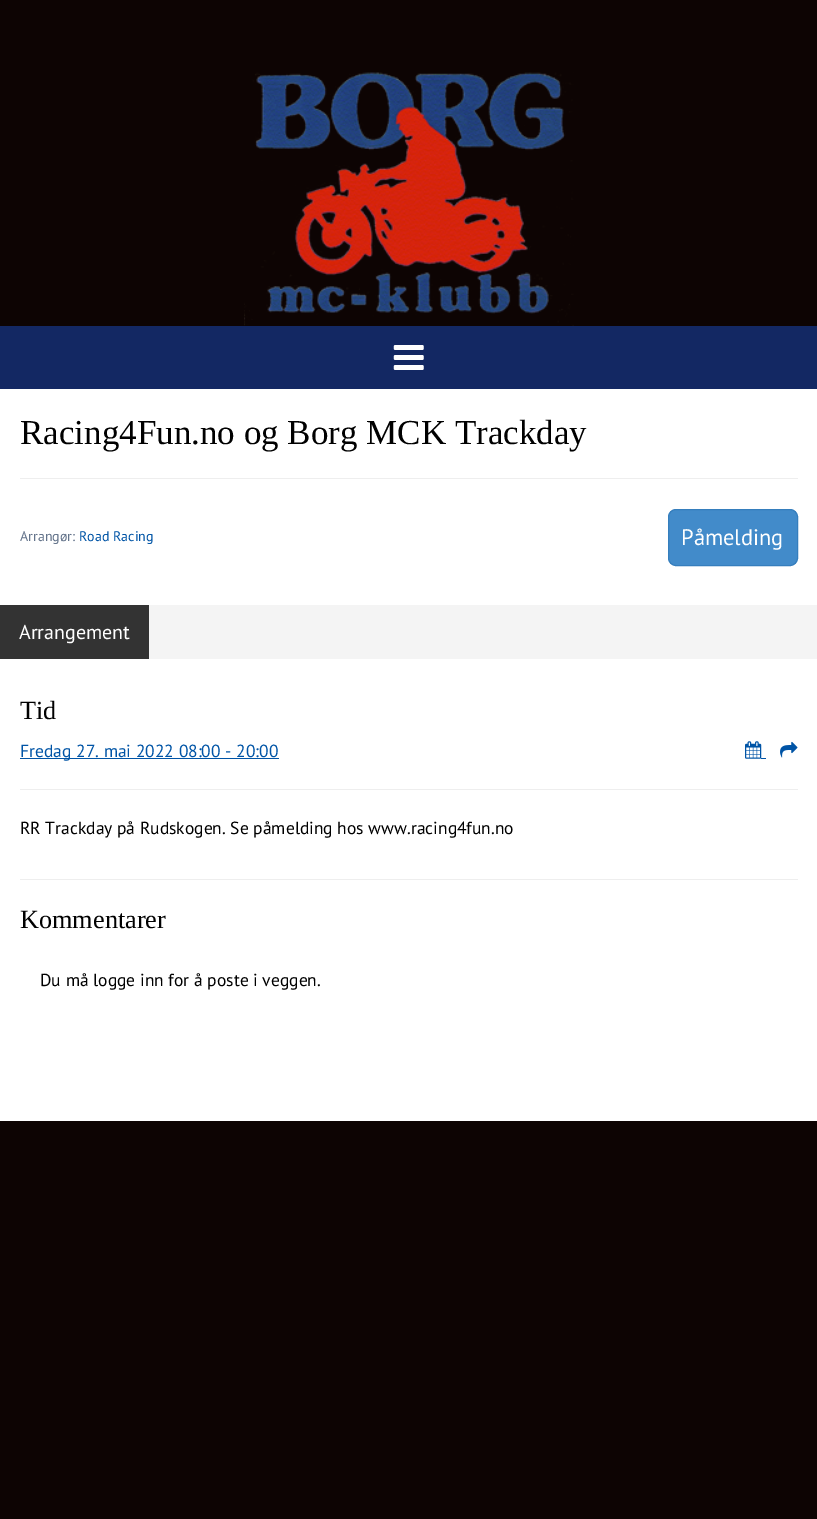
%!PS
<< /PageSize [817 1519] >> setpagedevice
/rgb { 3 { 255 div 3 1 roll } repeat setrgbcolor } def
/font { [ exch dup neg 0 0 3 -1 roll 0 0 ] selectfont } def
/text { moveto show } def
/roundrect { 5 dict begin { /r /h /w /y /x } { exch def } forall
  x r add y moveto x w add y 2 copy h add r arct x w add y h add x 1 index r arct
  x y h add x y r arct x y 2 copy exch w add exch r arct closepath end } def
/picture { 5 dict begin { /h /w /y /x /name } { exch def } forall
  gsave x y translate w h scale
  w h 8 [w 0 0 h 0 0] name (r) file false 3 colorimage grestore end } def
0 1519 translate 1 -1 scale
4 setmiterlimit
13 4 3 rgb
0 0 817 1519 rectfill
(img_01.rgb) 244 72 330 254 picture
19 40 99 rgb
0 326 817 63 rectfill
(img_02.rgb) 393 345 31 25 picture
255 255 255 rgb
0 389 817 732 rectfill
238 238 238 rgb
20 478 778 1 rectfill
66 139 202 rgb
668.5 509.5 129 56 7.5 roundrect gsave fill grestore
53 126 189 rgb
stroke
244 244 244 rgb
149 605 668 54 rectfill
51 51 51 rgb
0 605 149 54 rectfill
0 84 166 rgb
20 758 259 1 rectfill
(img_03.rgb) 745 741 17 18 picture
761 758 5 1 rectfill
(img_04.rgb) 780 741 18 17 picture
238 238 238 rgb
20 789 778 1 rectfill
20 879 778 1 rectfill
/LiberationSerif-Regular 35 font
0 0 0 rgb
(Racing4Fun.no og Borg MCK Trackday) 20 444 text
/PTSans-Regular 14 font
100 116 139 rgb
(Arrangør:) 20 541 text
0 84 166 rgb
(Road Racing) 79 541 text
/PTSans-Regular 22.5 font
255 255 255 rgb
(Påmelding) 681 545 text
/PTSans-Regular 20 font
(Arrangement) 19 639 text
/LiberationSerif-Regular 26.25 font
0 0 0 rgb
(Tid) 20 719 text
/PTSans-Regular 17.5 font
0 84 166 rgb
(Fredag 27. mai 2022 08:00 - 20:00) 20 757 text
0 0 0 rgb
(RR Trackday på Rudskogen. Se påmelding hos www.racing4fun.no) 20 834 text
/LiberationSerif-Regular 26.25 font
(Kommentarer) 20 928 text
/PTSans-Regular 17.5 font
(Du må logge inn for å poste i veggen.) 40 986 text
showpage
